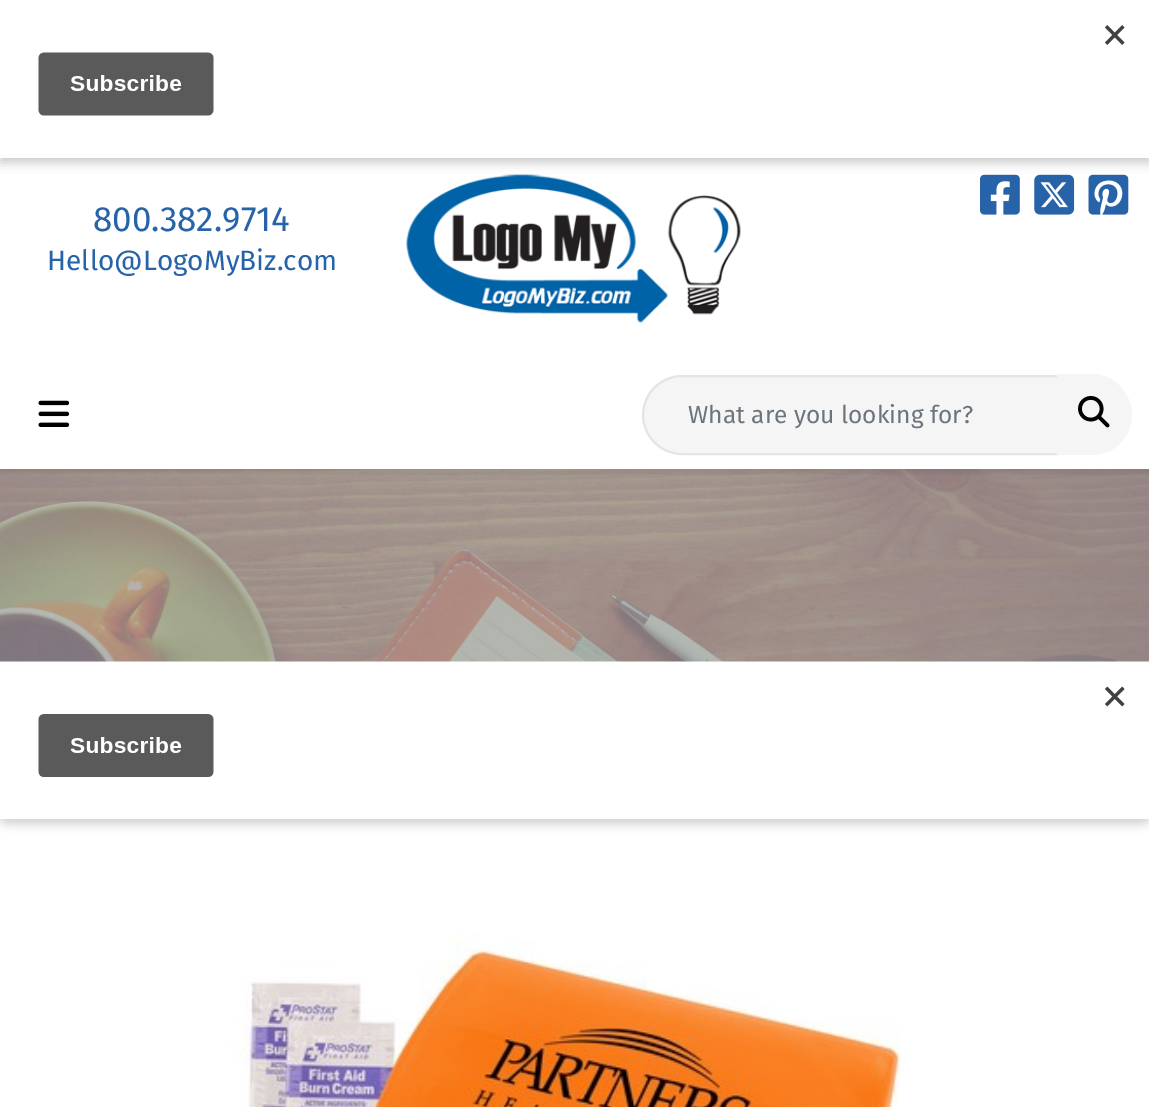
%!PS
<< /PageSize [1149 1107] /PageUsesTransparency true >> setpagedevice
/rgb { 3 { 255 div 3 1 roll } repeat setrgbcolor } def
/font { [ exch dup neg 0 0 3 -1 roll 0 0 ] selectfont } def
/text { moveto show } def
/alpha { dup .setfillconstantalpha .setstrokeconstantalpha } def
/roundrect { 5 dict begin { /r /h /w /y /x } { exch def } forall
  x r add y moveto x w add y 2 copy h add r arct x w add y h add x 1 index r arct
  x y h add x y r arct x y 2 copy exch w add exch r arct closepath end } def
/shadow { 12 dict begin { /a /b /q /h /w /y /x } { exch def } forall gsave /was 0 def
  9 -2 -9 { dup b mul 4 div /e exch def 1 sub .425 mul 2.718 exch exp 1 add a .99 .min exch div /now exch def
    1 1 now sub 1 was sub div sub alpha /was now def
    w h .min e 2 mul add 0 gt { x e sub y e sub w e 2 mul add h e 2 mul add
      q e add b .6 mul add w h .min 2 div e add .min 0 .max roundrect fill } if } for grestore end } def
/picture { 5 dict begin { /h /w /y /x /name } { exch def } forall
  gsave x y translate w h scale
  w h 8 [w 0 0 h 0 0] name (r) file false 3 colorimage grestore end } def
0 .pushpdf14devicefilter
0 1107 translate 1 -1 scale
4 setmiterlimit
255 255 255 rgb
0 0 1149 1107 rectfill
(img_02.rgb) 406 174 335 149 picture
(img_03.rgb) 980 174 40 41 picture
(img_04.rgb) 1034 174 41 41 picture
(img_05.rgb) 1088 174 41 41 picture
0 0 0 rgb
0 5 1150 158 0 5 0.2 shadow
255 255 255 rgb
0 0 1149 158 rectfill
(img_01.rgb) 38 25 1087 91 picture
(img_08.rgb) 0 469 1149 193 picture
gsave
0 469 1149 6 rectclip
0 0 0 rgb
0 364 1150 109 0 3.5 0.07 shadow
grestore
(img_06.rgb) 38 400 32 27 picture
245 245 245 rgb
682 376 moveto 376 0 rlineto 0 78 rlineto -376 0 rlineto -21.5 0 -39 -17.5 -39 -39 rcurveto 0 -21.5 17.5 -39 39 -39 rcurveto closepath gsave fill grestore
228 228 228 rgb
2 setlinewidth
stroke
245 245 245 rgb
1057 376 moveto 35.5 0 rlineto 21.5 0 38.5 17 38.5 38.5 rcurveto 0 21.5 -17 38.5 -38.5 38.5 rcurveto -35.5 0 rlineto closepath fill
1057 374 moveto 35 0 rlineto 22 0 40 19 40 41 rcurveto 0 22 -18 40 -40 40 rcurveto -35 0 rlineto closepath 1057 376 moveto 35 0 rlineto 21 0 38 17 38 39 rcurveto 0 21 -17 38 -38 38 rcurveto -35 0 rlineto closepath eofill
(img_07.rgb) 1078 395 32 33 picture
(img_09.rgb) 0 686 1149 421 picture
/FiraSans-Regular 35 font
39 99 168 rgb
(800.382.9714) 93 231 text
/FiraSans-Regular 28 font
(Hello@LogoMyBiz.com) 47 270 text
/FiraSans-Regular 24.5 font
108 117 125 rgb
(What are you looking for?) 688 423 text
.poppdf14devicefilter showpage
